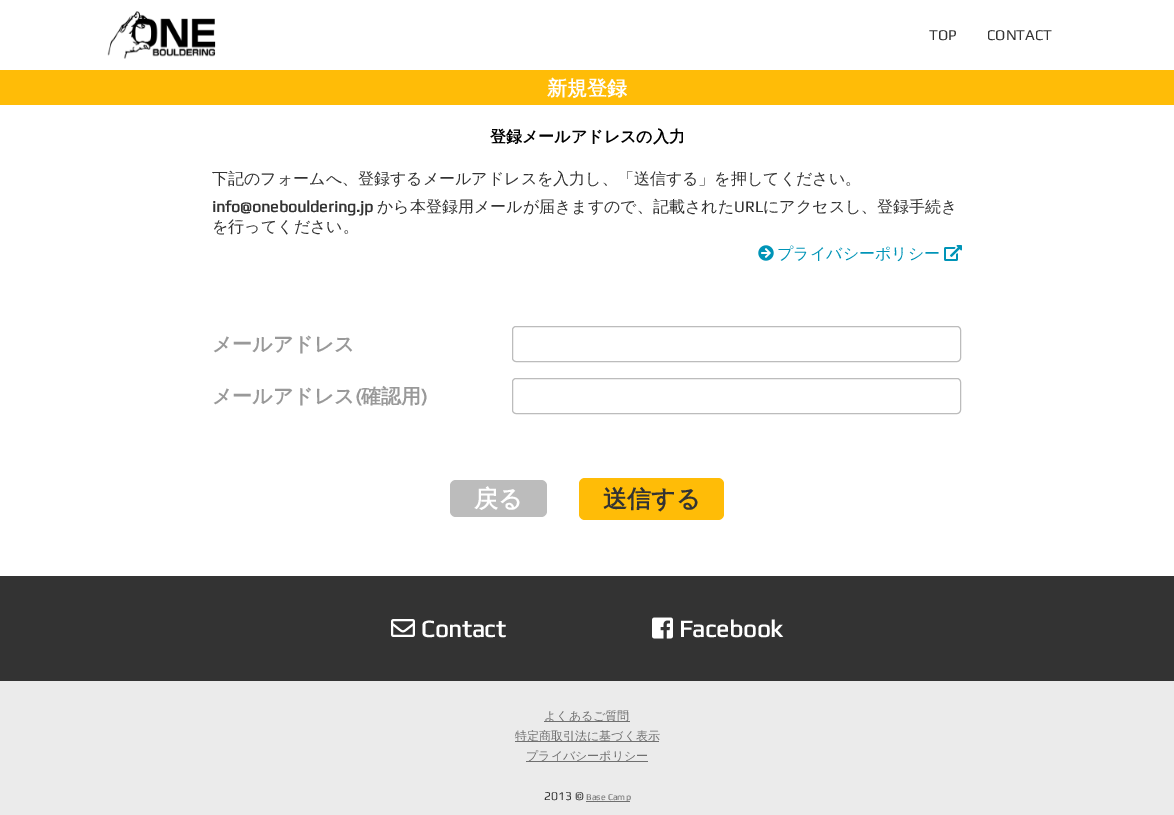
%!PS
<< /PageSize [1174 815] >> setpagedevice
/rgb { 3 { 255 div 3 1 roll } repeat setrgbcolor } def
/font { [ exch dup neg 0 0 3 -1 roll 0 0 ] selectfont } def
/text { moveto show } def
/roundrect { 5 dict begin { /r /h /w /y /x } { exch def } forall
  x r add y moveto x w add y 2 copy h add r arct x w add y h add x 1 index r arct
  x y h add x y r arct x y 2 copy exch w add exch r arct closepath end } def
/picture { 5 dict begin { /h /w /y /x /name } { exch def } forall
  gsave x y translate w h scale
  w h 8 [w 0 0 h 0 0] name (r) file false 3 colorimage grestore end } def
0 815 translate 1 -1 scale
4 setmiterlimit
255 255 255 rgb
0 0 1174 815 rectfill
(img_01.rgb) 107 11 109 48 picture
255 188 7 rgb
0 70 1174 35 rectfill
(img_02.rgb) 758 245 16 16 picture
(img_03.rgb) 944 245 18 16 picture
188 188 188 rgb
512.5 326.5 448 35 3.5 roundrect stroke
512.5 378.5 448 35 3.5 roundrect stroke
450 480 97 37 6 roundrect fill
255 188 7 rgb
579 478 145 42 6 roundrect fill
51 51 51 rgb
0 576 1174 105 rectfill
(img_04.rgb) 391 619 24 18 picture
(img_05.rgb) 652 617 21 22 picture
235 235 235 rgb
0 681 1174 134 rectfill
112 112 112 rgb
544 721 86 1 rectfill
515 741 144 1 rectfill
526 761 122 1 rectfill
586 801 44 1 rectfill
/Play-Regular 15 font
51 51 51 rgb
(TOP) 929 40 text
(CONTACT) 987 40 text
/WenQuanYiZenHei-Bold 20 font
255 255 255 rgb
(新規登録) 547 95 text
/WenQuanYiZenHei-Bold 16 font
0 0 0 rgb
(登録メールアドレスの入力) 490 142 text
/WenQuanYiZenHei-Medium 16 font
51 51 51 rgb
(下記のフォームへ、登録するメールアドレスを入力し、「送信する」を押してください。) 212 184 text
/Play-Bold 16 font
(info@onebouldering.jp) 212 212 text
/WenQuanYiZenHei-Medium 16 font
(から本登録用メールが届きますので、記載された) 377 212 text
/Play-Regular 16 font
(URL) 734 212 text
/WenQuanYiZenHei-Medium 16 font
(にアクセスし、登録手続き) 763 212 text
(を行ってください。) 212 232 text
0 148 183 rgb
(プライバシーポリシー) 777 259 text
/WenQuanYiZenHei-Bold 20 font
153 153 153 rgb
(メールアドレス) 212 351 text
(メールアドレス) 212 403 text
/Play-Bold 20 font
(\() 355 403 text
/WenQuanYiZenHei-Bold 20 font
(確認用) 361 403 text
/Play-Bold 20 font
(\)) 421 403 text
/WenQuanYiZenHei-Bold 24 font
255 255 255 rgb
(戻る) 474 507 text
51 51 51 rgb
(送信する) 603 507 text
/Play-Bold 24 font
255 255 255 rgb
(Contact) 421 637 text
(Facebook) 679 637 text
/WenQuanYiZenHei-Medium 12 font
112 112 112 rgb
(よくあるご質問) 544 720 text
(特定商取引法に基づく表示) 515 740 text
(プライバシーポリシー) 526 760 text
/Play-Regular 12 font
51 51 51 rgb
(2013 ©) 544 800 text
/Play-Regular 9 font
112 112 112 rgb
(Base Camp) 586 800 text
showpage
